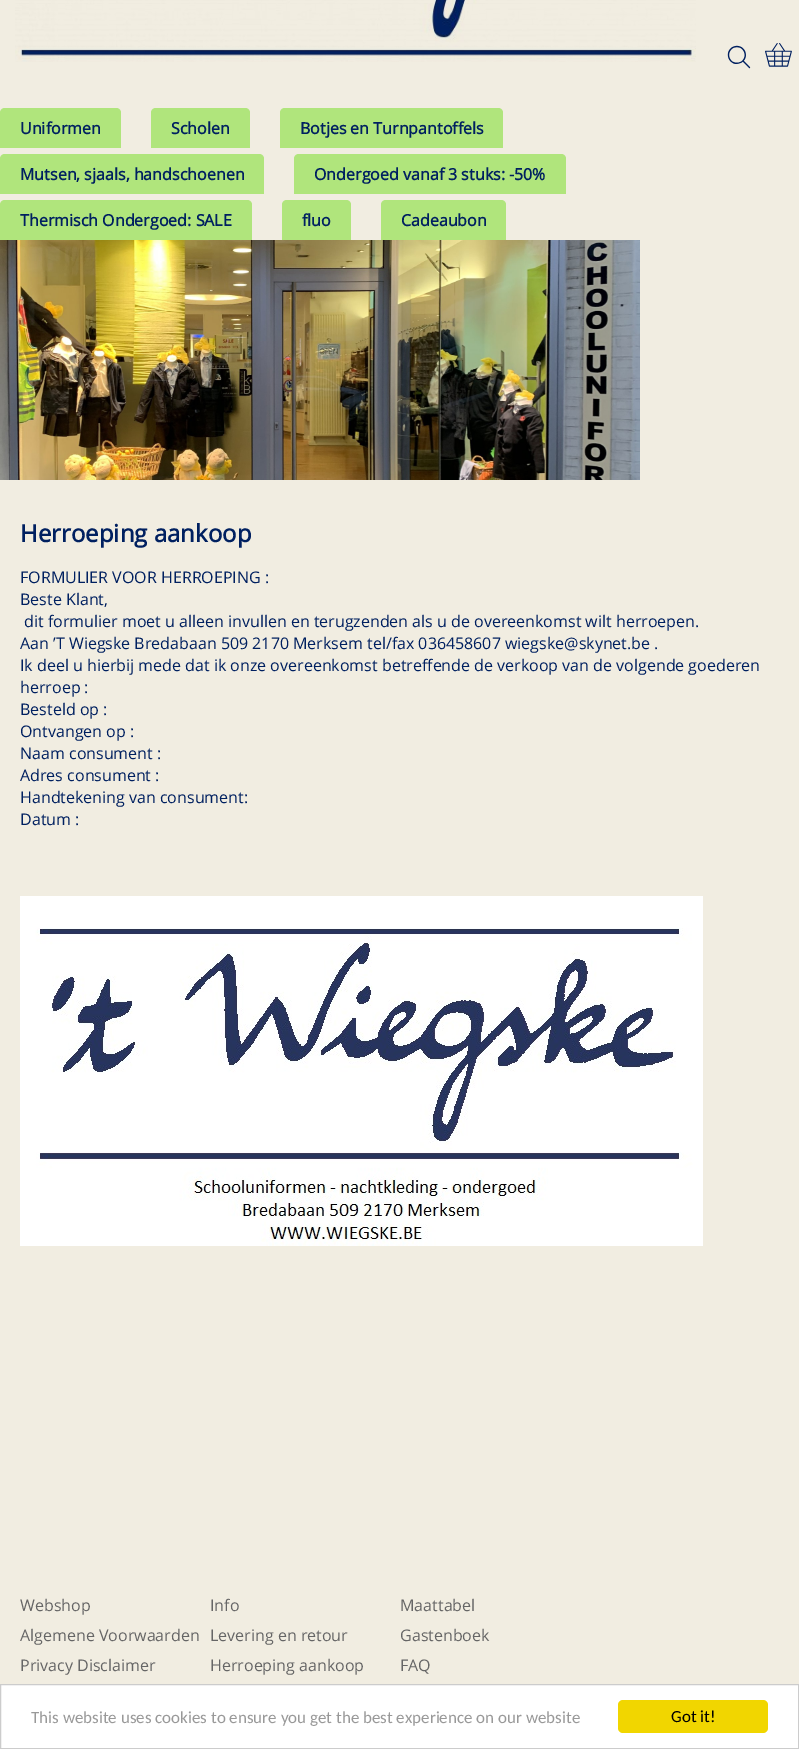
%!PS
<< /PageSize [799 1749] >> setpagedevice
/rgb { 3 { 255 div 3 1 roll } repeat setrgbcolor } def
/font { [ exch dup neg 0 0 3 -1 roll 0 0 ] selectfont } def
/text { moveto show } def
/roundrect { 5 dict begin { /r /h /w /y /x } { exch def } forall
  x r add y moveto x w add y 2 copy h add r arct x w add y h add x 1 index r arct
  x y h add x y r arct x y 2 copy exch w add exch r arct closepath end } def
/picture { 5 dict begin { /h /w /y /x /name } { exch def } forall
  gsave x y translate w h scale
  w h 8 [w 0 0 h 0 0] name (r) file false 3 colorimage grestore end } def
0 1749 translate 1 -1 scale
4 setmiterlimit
241 237 225 rgb
0 0 799 1749 rectfill
(img_01.rgb) 15 0 681 62 picture
(img_02.rgb) 727 45 24 24 picture
(img_03.rgb) 765 43 27 24 picture
176 229 124 rgb
5 108 moveto 111 0 rlineto 3 0 5 2 5 5 rcurveto 0 35 rlineto -121 0 rlineto 0 -35 rlineto 0 -3 2 -5 5 -5 rcurveto closepath fill
156 108 moveto 89 0 rlineto 3 0 5 2 5 5 rcurveto 0 35 rlineto -99 0 rlineto 0 -35 rlineto 0 -3 2 -5 5 -5 rcurveto closepath fill
285 108 moveto 213 0 rlineto 3 0 5 2 5 5 rcurveto 0 35 rlineto -223 0 rlineto 0 -35 rlineto 0 -3 2 -5 5 -5 rcurveto closepath fill
5 154 moveto 254 0 rlineto 3 0 5 2 5 5 rcurveto 0 35 rlineto -264 0 rlineto 0 -35 rlineto 0 -3 2 -5 5 -5 rcurveto closepath fill
299 154 moveto 262 0 rlineto 3 0 5 2 5 5 rcurveto 0 35 rlineto -272 0 rlineto 0 -35 rlineto 0 -3 2 -5 5 -5 rcurveto closepath fill
5 200 moveto 242 0 rlineto 3 0 5 2 5 5 rcurveto 0 35 rlineto -252 0 rlineto 0 -35 rlineto 0 -3 2 -5 5 -5 rcurveto closepath fill
287 200 moveto 59 0 rlineto 3 0 5 2 5 5 rcurveto 0 35 rlineto -69 0 rlineto 0 -35 rlineto 0 -3 2 -5 5 -5 rcurveto closepath fill
386 200 moveto 115 0 rlineto 3 0 5 2 5 5 rcurveto 0 35 rlineto -125 0 rlineto 0 -35 rlineto 0 -3 2 -5 5 -5 rcurveto closepath fill
(img_04.rgb) 0 240 640 240 picture
(img_05.rgb) 20 896 683 350 picture
255 255 255 rgb
0.5 1684.5 moveto 798 0 rlineto 0 64 rlineto -798 0 rlineto closepath gsave fill grestore
204 204 204 rgb
stroke
241 214 0 rgb
618 1700 150 33 5 roundrect fill
/OpenSans-Bold 16 font
0 32 96 rgb
(Uniformen) 20 134 text
(Scholen) 171 134 text
(Botjes en Turnpantoffels) 300 134 text
(Mutsen, sjaals, handschoenen) 20 180 text
(Ondergoed vanaf 3 stuks: -50%) 314 180 text
(Thermisch Ondergoed: SALE) 20 226 text
(fluo) 302 226 text
(Cadeaubon) 401 226 text
/OpenSans-Bold 24 font
(Herroeping aankoop) 20 542 text
/OpenSans-Regular 16 font
(FORMULIER VOOR HERROEPING :) 20 583 text
(Beste Klant,) 20 605 text
(dit formulier moet u alleen invullen en terugzenden als u de overeenkomst wilt herroepen.) 24 627 text
(Aan ’T Wiegske Bredabaan 509 2170 Merksem tel/fax 036458607 wiegske@skynet.be .) 20 649 text
(Ik deel u hierbij mede dat ik onze overeenkomst betreffende de verkoop van de volgende goederen) 20 671 text
(herroep :) 20 693 text
(Besteld op :) 20 715 text
(Ontvangen op :) 20 737 text
(Naam consument :) 20 759 text
(Adres consument :) 20 781 text
(Handtekening van consument:) 20 803 text
(Datum :) 20 825 text
102 102 102 rgb
(Webshop) 20 1611 text
(Info) 210 1611 text
(Maattabel) 400 1611 text
(Algemene Voorwaarden) 20 1641 text
(Levering en retour) 210 1641 text
(Gastenboek) 400 1641 text
(Privacy Disclaimer) 20 1671 text
(Herroeping aankoop) 210 1671 text
(FAQ) 400 1671 text
/Carlito-Regular 17 font
153 153 153 rgb
(This website uses cookies to ensure you get the best experience on our website) 31 1723 text
0 0 0 rgb
(Got it!) 671 1722 text
showpage
